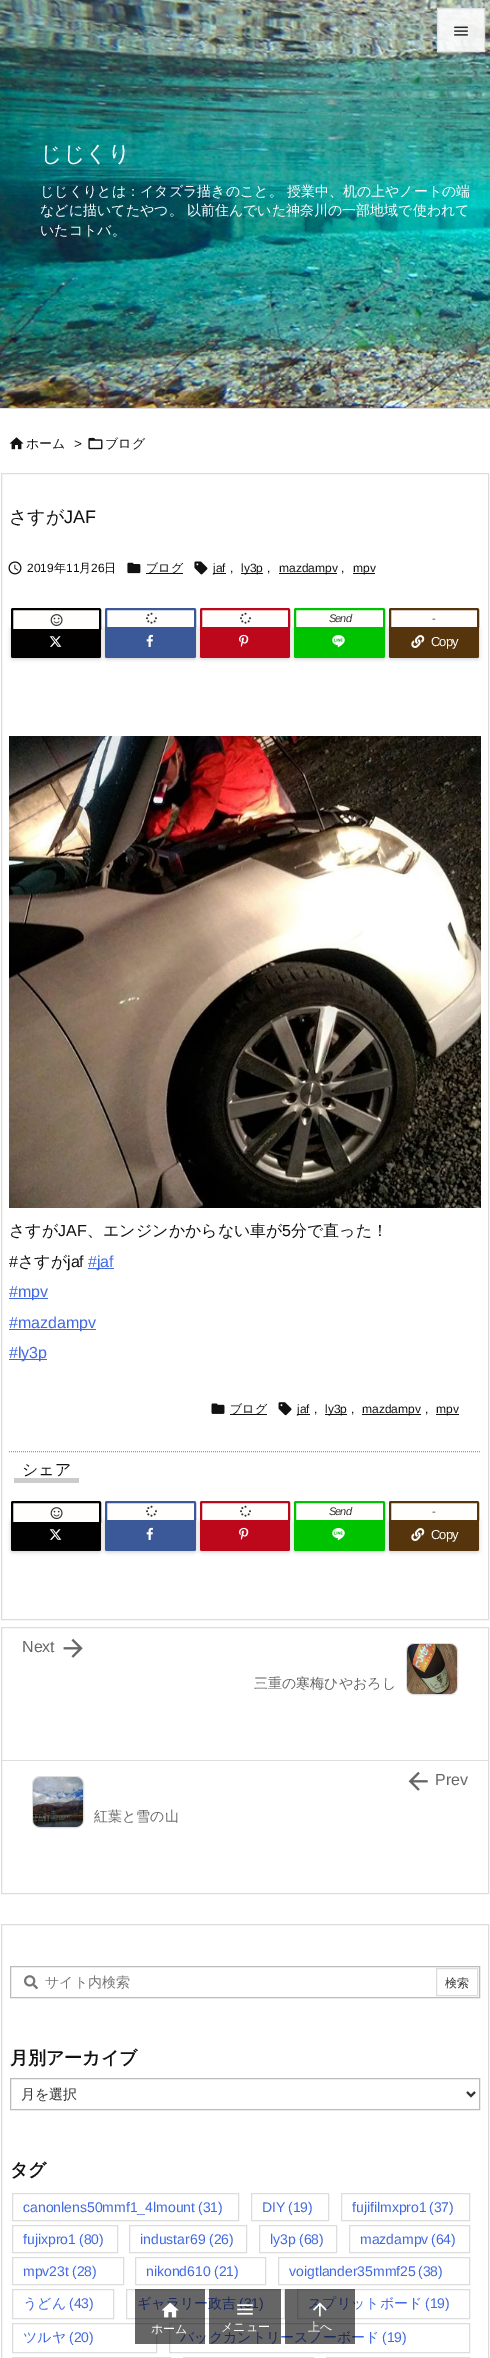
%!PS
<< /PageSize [490 2358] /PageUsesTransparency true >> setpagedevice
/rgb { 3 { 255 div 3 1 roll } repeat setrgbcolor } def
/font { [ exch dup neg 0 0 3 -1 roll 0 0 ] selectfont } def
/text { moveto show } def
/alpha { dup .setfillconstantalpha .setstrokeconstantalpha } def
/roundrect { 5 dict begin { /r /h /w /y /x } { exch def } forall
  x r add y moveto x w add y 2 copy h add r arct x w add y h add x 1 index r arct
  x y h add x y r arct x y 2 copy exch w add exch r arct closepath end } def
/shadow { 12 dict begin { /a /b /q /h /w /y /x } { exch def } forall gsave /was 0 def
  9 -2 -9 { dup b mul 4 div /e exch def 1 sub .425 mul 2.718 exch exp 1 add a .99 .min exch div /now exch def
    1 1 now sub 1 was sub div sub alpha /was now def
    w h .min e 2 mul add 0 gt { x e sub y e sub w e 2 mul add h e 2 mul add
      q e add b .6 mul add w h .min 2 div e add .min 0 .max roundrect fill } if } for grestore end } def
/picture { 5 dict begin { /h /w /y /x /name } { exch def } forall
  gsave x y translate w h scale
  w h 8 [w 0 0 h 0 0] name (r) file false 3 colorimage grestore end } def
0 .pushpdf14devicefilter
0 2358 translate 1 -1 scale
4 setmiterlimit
255 255 255 rgb
0 0 490 2358 rectfill
221 221 221 rgb
0 408 490 1 rectfill
(img_02.rgb) 0 0 490 408 picture
0.9 alpha
255 255 255 rgb
437 8 48 44 rectfill
221 221 221 rgb
437.5 8.5 47 43 rectstroke
1 alpha
(img_01.rgb) 454 26 14 10 picture
(img_03.rgb) 9 437 15 13 picture
(img_04.rgb) 88 437 15 13 picture
1.5 473.5 487 1146 rectstroke
(img_05.rgb) 8 561 14 14 picture
(img_06.rgb) 127 562 14 12 picture
17 17 17 rgb
146 573 37 1 rectfill
(img_07.rgb) 194 561 14 14 picture
213 573 13 1 rectfill
241 573 22 1 rectfill
279 573 58 1 rectfill
353 573 22 1 rectfill
0 0 0 rgb
11 627 90 32 2 2 0.2 shadow
1 1 1 rgb
11 626 90 32 2 roundrect fill
255 254 253 rgb
12 609 88 21 1 roundrect gsave fill grestore
1 1 1 rgb
2 setlinewidth
stroke
(img_08.rgb) 50 614 13 12 picture
(img_09.rgb) 49 636 13 11 picture
0 0 0 rgb
105 627 91 32 2 2 0.2 shadow
59 89 152 rgb
105 626 91 32 2 roundrect fill
255 254 253 rgb
106 609 89 19 1 roundrect gsave fill grestore
59 89 152 rgb
stroke
(img_10.rgb) 146 612 11 12 picture
(img_11.rgb) 146 634 7 13 picture
0 0 0 rgb
200 627 90 32 2 2 0.2 shadow
189 8 28 rgb
200 626 90 32 2 roundrect fill
255 254 253 rgb
201 609 88 19 1 roundrect gsave fill grestore
189 8 28 rgb
stroke
(img_10.rgb) 240 612 11 12 picture
(img_12.rgb) 239 634 10 13 picture
0 0 0 rgb
294 627 91 32 2 2 0.2 shadow
0 195 0 rgb
294 626 91 32 2 roundrect fill
255 254 253 rgb
295 609 89 19 1 roundrect gsave fill grestore
0 195 0 rgb
stroke
(img_13.rgb) 332 635 13 13 picture
0 0 0 rgb
389 627 90 32 2 2 0.2 shadow
86 53 13 rgb
389 626 90 32 2 roundrect fill
255 254 253 rgb
390 609 88 19 1 roundrect gsave fill grestore
86 53 13 rgb
stroke
(img_14.rgb) 411 635 14 13 picture
(img_15.rgb) 9 736 472 472 picture
65 105 225 rgb
88 1268 26 1 rectfill
9 1298 39 1 rectfill
9 1329 87 1 rectfill
9 1359 38 1 rectfill
(img_16.rgb) 211 1403 14 11 picture
17 17 17 rgb
230 1414 37 1 rectfill
(img_17.rgb) 278 1402 14 14 picture
297 1414 13 1 rectfill
325 1414 22 1 rectfill
362 1414 59 1 rectfill
436 1414 23 1 rectfill
153 153 153 rgb
1 setlinewidth
[1 1] 0 setdash
9 1451.5 moveto 472 0 rlineto stroke
204 204 204 rgb
14 1478 65 5 rectfill
0 0 0 rgb
11 1520 90 32 2 2 0.2 shadow
1 1 1 rgb
11 1519 90 32 2 roundrect fill
255 254 253 rgb
12 1502 88 21 1 roundrect gsave fill grestore
1 1 1 rgb
2 setlinewidth
[] 0 setdash
stroke
(img_18.rgb) 50 1507 13 13 picture
(img_09.rgb) 49 1529 13 11 picture
0 0 0 rgb
105 1520 91 32 2 2 0.2 shadow
59 89 152 rgb
105 1519 91 32 2 roundrect fill
255 254 253 rgb
106 1502 89 19 1 roundrect gsave fill grestore
59 89 152 rgb
stroke
(img_10.rgb) 146 1505 11 12 picture
(img_11.rgb) 146 1527 7 13 picture
0 0 0 rgb
200 1520 90 32 2 2 0.2 shadow
189 8 28 rgb
200 1519 90 32 2 roundrect fill
255 254 253 rgb
201 1502 88 19 1 roundrect gsave fill grestore
189 8 28 rgb
stroke
(img_10.rgb) 240 1505 11 12 picture
(img_12.rgb) 239 1527 10 13 picture
0 0 0 rgb
294 1520 91 32 2 2 0.2 shadow
0 195 0 rgb
294 1519 91 32 2 roundrect fill
255 254 253 rgb
295 1502 89 19 1 roundrect gsave fill grestore
0 195 0 rgb
stroke
(img_13.rgb) 332 1528 13 13 picture
0 0 0 rgb
389 1520 90 32 2 2 0.2 shadow
86 53 13 rgb
389 1519 90 32 2 roundrect fill
255 254 253 rgb
390 1502 88 19 1 roundrect gsave fill grestore
86 53 13 rgb
stroke
(img_14.rgb) 411 1528 14 13 picture
221 221 221 rgb
1 setlinewidth
1.5 1627.5 487 266 rectstroke
2 1760 486 1 rectfill
(img_19.rgb) 63 1638 20 20 picture
406.5 1643.5 51 51 7.5 roundrect stroke
(img_20.rgb) 407 1644 50 50 picture
32.5 1776.5 51 51 7.5 roundrect stroke
(img_21.rgb) 33 1777 50 50 picture
(img_22.rgb) 408 1771 20 20 picture
1.5 1924.5 487 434 rectstroke
187 187 187 rgb
10.5 1966.5 469 31 rectstroke
(img_23.rgb) 24 1975 14 15 picture
221 221 221 rgb
436.5 1968.5 41 27 rectstroke
187 187 187 rgb
10.5 2078.5 469 31 rectstroke
51 51 51 rgb
2 setlinewidth
467 2092 moveto 4 4 rlineto 4 -4 rlineto stroke
221 221 221 rgb
1 setlinewidth
12.5 2193.5 226 27 rectstroke
251.5 2193.5 77 27 rectstroke
341.5 2193.5 128 27 rectstroke
12.5 2225.5 105 27 rectstroke
129.5 2225.5 117 27 rectstroke
259.5 2225.5 77 27 rectstroke
349.5 2225.5 120 27 rectstroke
12.5 2257.5 111 27 rectstroke
135.5 2257.5 130 27 rectstroke
278.5 2257.5 191 27 rectstroke
12.5 2289.5 101 29 rectstroke
126.5 2289.5 158 29 rectstroke
297.5 2289.5 172 29 rectstroke
12.5 2323.5 144 29 rectstroke
169.5 2323.5 300 29 rectstroke
12.5 2357.5 158 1 rectstroke
183.5 2357.5 130 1 rectstroke
326.5 2357.5 143 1 rectstroke
/WenQuanYiZenHei-Medium 22 font
255 255 255 rgb
(じじくり) 40 161 text
/WenQuanYiZenHei-Medium 14 font
(じじくりとは：イタズラ描きのこと。 授業中、机の上やノートの端) 40 196 text
(などに描いてたやつ。 以前住んでいた神奈川の一部地域で使われて) 40 215 text
(いたコトバ。) 40 235 text
/WenQuanYiZenHei-Medium 13 font
17 17 17 rgb
(ホーム) 26 448 text
/LiberationSans-Italic 13 font
(>) 74 448 text
/WenQuanYiZenHei-Medium 13 font
(ブログ) 105 448 text
/WenQuanYiZenHei-Medium 18 font
(さすが) 9 523 text
/LiberationSans-Regular 18 font
(JAF) 64 523 text
/LiberationSans-Regular 12 font
(2019) 27 572 text
/WenQuanYiZenHei-Medium 12 font
(年) 54 572 text
/LiberationSans-Regular 12 font
(11) 66 572 text
/WenQuanYiZenHei-Medium 12 font
(月) 79 572 text
/LiberationSans-Regular 12 font
(26) 91 572 text
/WenQuanYiZenHei-Medium 12 font
(日) 104 572 text
(ブログ) 146 572 text
/LiberationSans-Regular 12 font
(jaf) 213 572 text
(,) 230 572 text
(ly3p) 241 572 text
(,) 267 572 text
(mazdampv) 279 572 text
(,) 341 572 text
(mpv) 353 572 text
/LiberationSans-Italic 11 font
51 51 51 rgb
329 622 moveto -1 0 (Send) ashow
/LiberationSans-Regular 11 font
432 622 moveto -1 0 (-) ashow
/LiberationSans-Regular 13 font
255 255 255 rgb
431 646 moveto -1 0 (Copy) ashow
/WenQuanYiZenHei-Medium 16 font
17 17 17 rgb
(さすが) 9 1236 text
/LiberationSans-Regular 16 font
(JAF) 58 1236 text
/WenQuanYiZenHei-Medium 16 font
(、エンジンかからない車が) 87 1236 text
/LiberationSans-Regular 16 font
(5) 282 1236 text
/WenQuanYiZenHei-Medium 16 font
(分で直った！) 291 1236 text
/LiberationSans-Regular 16 font
(#) 9 1267 text
/WenQuanYiZenHei-Medium 16 font
(さすが) 18 1267 text
/LiberationSans-Regular 16 font
(jaf) 67 1267 text
65 105 225 rgb
(#jaf) 88 1267 text
(#mpv) 9 1297 text
(#mazdampv) 9 1328 text
(#ly3p) 9 1358 text
/WenQuanYiZenHei-Medium 12 font
17 17 17 rgb
(ブログ) 230 1413 text
/LiberationSans-Regular 12 font
(jaf) 297 1413 text
(,) 314 1413 text
(ly3p) 325 1413 text
(,) 351 1413 text
(mazdampv) 362 1413 text
(,) 425 1413 text
(mpv) 436 1413 text
/WenQuanYiZenHei-Medium 16 font
(シェア) 22 1475 text
/LiberationSans-Italic 11 font
51 51 51 rgb
329 1515 moveto -1 0 (Send) ashow
/LiberationSans-Regular 11 font
432 1515 moveto -1 0 (-) ashow
/LiberationSans-Regular 13 font
255 255 255 rgb
431 1539 moveto -1 0 (Copy) ashow
/LiberationSans-Regular 16 font
102 102 102 rgb
(Next) 22 1652 text
/WenQuanYiZenHei-Medium 14 font
(三重の寒梅ひやおろし) 254 1688 text
(紅葉と雪の山) 94 1821 text
/LiberationSans-Regular 16 font
(Prev) 435 1785 text
/WenQuanYiZenHei-Medium 14 font
117 117 117 rgb
(サイト内検索) 45 1987 text
/WenQuanYiZenHei-Medium 12 font
51 51 51 rgb
(検索) 445 1987 text
/WenQuanYiZenHei-Bold 18 font
17 17 17 rgb
(月別アーカイブ) 10 2064 text
/WenQuanYiZenHei-Medium 14 font
51 51 51 rgb
(月を選択) 21 2099 text
/WenQuanYiZenHei-Bold 18 font
17 17 17 rgb
(タグ) 10 2176 text
/LiberationSans-Regular 14 font
65 105 225 rgb
(canonlens50mmf1_4lmount) 23 2212 text
(\(31\)) 198 2212 text
(DIY) 262 2212 text
(\(19\)) 288 2212 text
(fujifilmxpro1) 352 2212 text
(\(37\)) 429 2212 text
(fujixpro1) 23 2244 text
(\(80\)) 79 2244 text
(industar69) 140 2244 text
(\(26\)) 209 2244 text
(ly3p) 270 2244 text
(\(68\)) 299 2244 text
(mazdampv) 360 2244 text
(\(64\)) 431 2244 text
(mpv23t) 23 2276 text
(\(28\)) 72 2276 text
(nikond610) 146 2276 text
(\(21\)) 214 2276 text
(voigtlander35mmf25) 289 2276 text
(\(38\)) 418 2276 text
/WenQuanYiZenHei-Medium 14 font
(うどん) 23 2308 text
/LiberationSans-Regular 14 font
(\(43\)) 69 2308 text
/WenQuanYiZenHei-Medium 14 font
(ギャラリー政吉) 137 2308 text
/LiberationSans-Regular 14 font
(\(31\)) 239 2308 text
/WenQuanYiZenHei-Medium 14 font
(スプリットボード) 308 2308 text
/LiberationSans-Regular 14 font
(\(19\)) 425 2308 text
/WenQuanYiZenHei-Medium 14 font
(ツルヤ) 23 2342 text
/LiberationSans-Regular 14 font
(\(20\)) 69 2342 text
/WenQuanYiZenHei-Medium 14 font
(バックカントリースノーボード) 180 2342 text
/LiberationSans-Regular 14 font
(\(19\)) 382 2342 text
0.6 alpha
0 0 0 rgb
135 2289 70 55 rectfill
1 alpha
(img_24.rgb) 161 2302 18 16 picture
/WenQuanYiZenHei-Medium 12 font
255 255 255 rgb
(ホーム) 151 2333 text
0.6 alpha
0 0 0 rgb
209 2289 72 55 rectfill
1 alpha
(img_25.rgb) 237 2304 16 11 picture
255 255 255 rgb
(メニュー) 221 2331 text
0.6 alpha
0 0 0 rgb
285 2289 70 55 rectfill
1 alpha
(img_26.rgb) 313 2302 14 15 picture
255 255 255 rgb
(上へ) 308 2331 text
.poppdf14devicefilter showpage
